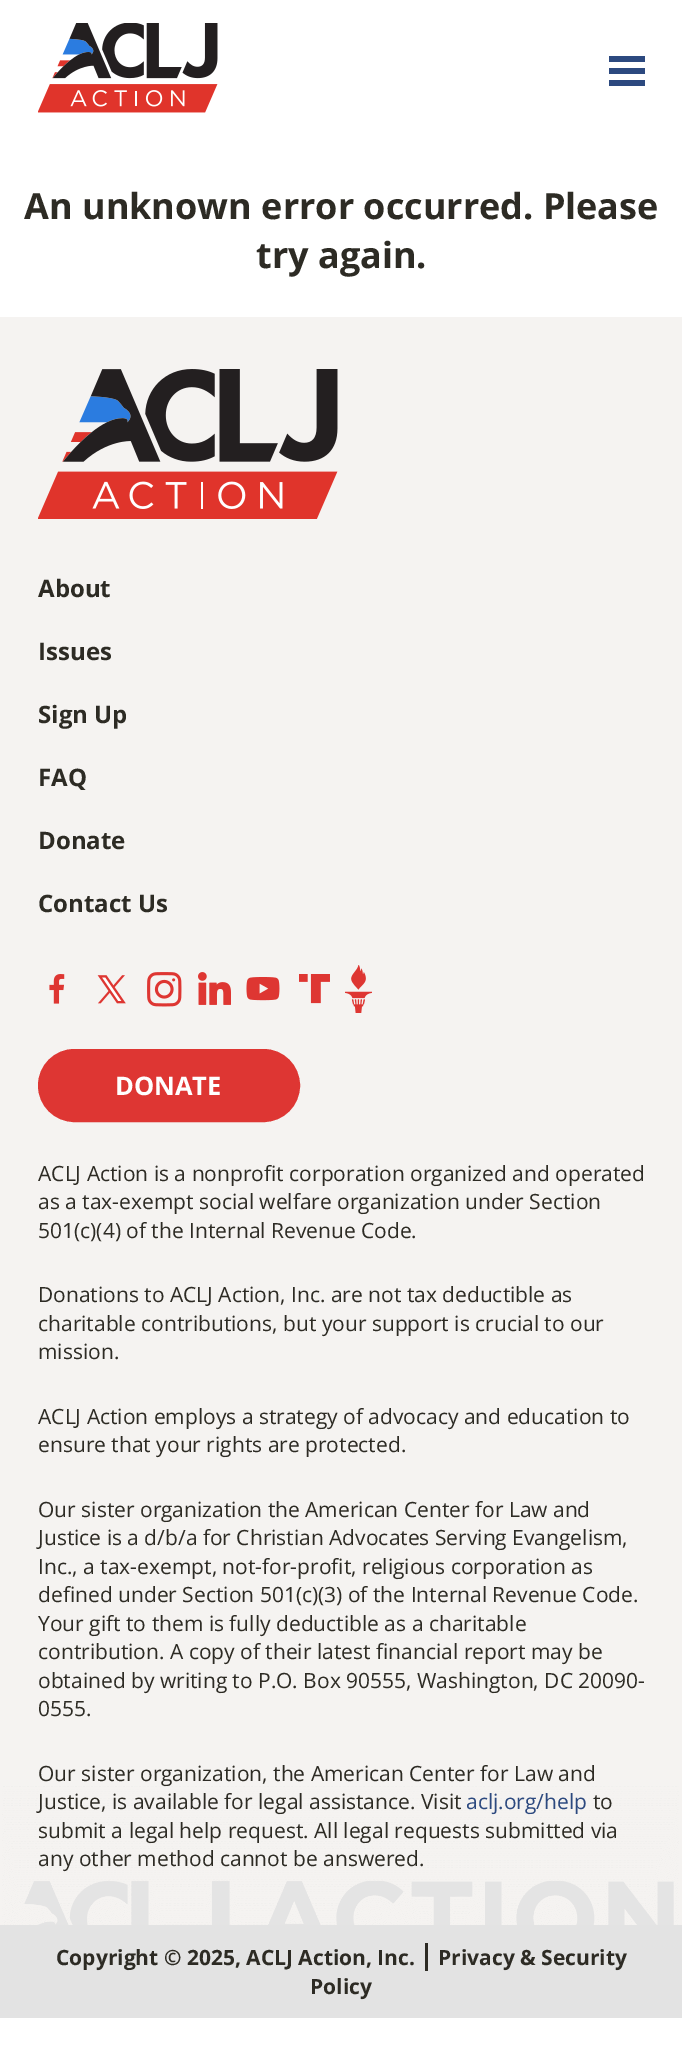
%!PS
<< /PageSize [682 2069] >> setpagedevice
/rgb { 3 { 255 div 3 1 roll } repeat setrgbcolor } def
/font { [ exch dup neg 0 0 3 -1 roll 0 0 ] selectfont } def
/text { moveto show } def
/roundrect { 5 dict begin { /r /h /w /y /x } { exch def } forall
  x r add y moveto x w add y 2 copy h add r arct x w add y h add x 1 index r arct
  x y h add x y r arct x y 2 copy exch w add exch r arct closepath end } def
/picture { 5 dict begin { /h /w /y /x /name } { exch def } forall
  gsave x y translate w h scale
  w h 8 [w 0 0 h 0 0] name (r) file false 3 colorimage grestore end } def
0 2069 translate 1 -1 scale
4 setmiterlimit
255 255 255 rgb
0 0 682 2069 rectfill
(img_01.rgb) 38 23 180 90 picture
44 73 127 rgb
609 56 36 6 rectfill
609 68 36 6 rectfill
609 80 36 6 rectfill
245 243 241 rgb
0 317 682 1608 rectfill
(img_02.rgb) 38 369 300 150 picture
(img_03.rgb) 49 974 16 30 picture
(img_04.rgb) 97 975 29 29 picture
(img_05.rgb) 147 972 35 35 picture
(img_06.rgb) 198 972 33 33 picture
(img_07.rgb) 246 977 34 24 picture
(img_08.rgb) 299 974 31 30 picture
(img_09.rgb) 345 965 27 48 picture
222 54 51 rgb
40.5 1051.5 257 68 34 roundrect gsave fill grestore
5 setlinewidth
stroke
(img_10.rgb) 2 1786 677 139 picture
227 227 227 rgb
0 1925 682 93 rectfill
45 43 36 rgb
425 1943 3 28 rectfill
/OpenSans-Bold 36 font
(An unknown error occurred. Please) 24 219 text
(try again.) 256 268 text
/OpenSans-Bold 24 font
(About) 38 597 text
(Issues) 38 660 text
(Sign Up) 38 723 text
(FAQ) 38 786 text
(Donate) 38 849 text
(Contact Us) 38 912 text
/OpenSans-Bold 25.5 font
255 255 255 rgb
(DONATE) 115 1095 text
/OpenSans-Regular 21 font
45 43 36 rgb
(ACLJ Action is a nonprofit corporation organized and operated) 38 1181 text
(as a tax-exempt social welfare organization under Section) 38 1209 text
(501\(c\)\(4\) of the Internal Revenue Code.) 38 1238 text
(Donations to ACLJ Action, Inc. are not tax deductible as) 38 1302 text
(charitable contributions, but your support is crucial to our) 38 1331 text
(mission.) 38 1359 text
(ACLJ Action employs a strategy of advocacy and education to) 38 1424 text
(ensure that your rights are protected.) 38 1452 text
(Our sister organization the American Center for Law and) 38 1517 text
(Justice is a d/b/a for Christian Advocates Serving Evangelism,) 38 1545 text
(Inc., a tax-exempt, not-for-profit, religious corporation as) 38 1574 text
(defined under Section 501\(c\)\(3\) of the Internal Revenue Code.) 38 1602 text
(Your gift to them is fully deductible as a charitable) 38 1631 text
(contribution. A copy of their latest financial report may be) 38 1659 text
(obtained by writing to P.O. Box 90555, Washington, DC 20090-) 38 1688 text
(0555.) 38 1716 text
(Our sister organization, the American Center for Law and) 38 1781 text
(Justice, is available for legal assistance. Visit) 38 1809 text
44 73 127 rgb
(aclj.org/help) 466 1809 text
45 43 36 rgb
(to) 593 1809 text
(submit a legal help request. All legal requests submitted via) 38 1838 text
(any other method cannot be answered.) 38 1866 text
/OpenSans-Bold 21 font
(Copyright © 2025, ACLJ Action, Inc.) 56 1965 text
(Privacy & Security) 438 1965 text
(Policy) 310 1994 text
showpage
